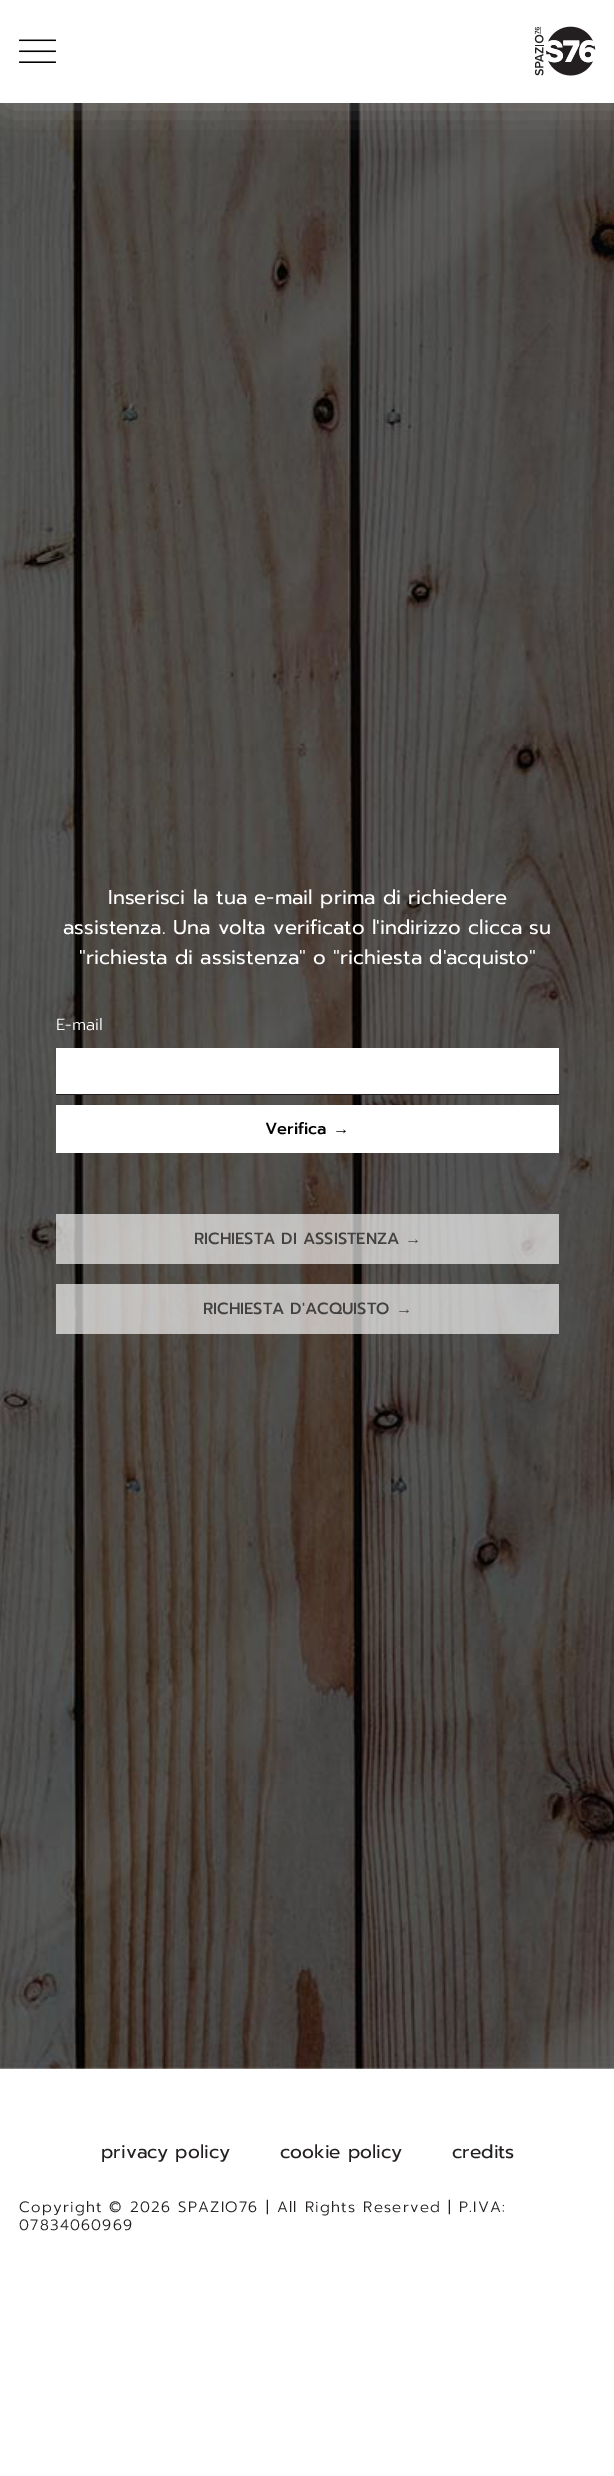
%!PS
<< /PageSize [614 2476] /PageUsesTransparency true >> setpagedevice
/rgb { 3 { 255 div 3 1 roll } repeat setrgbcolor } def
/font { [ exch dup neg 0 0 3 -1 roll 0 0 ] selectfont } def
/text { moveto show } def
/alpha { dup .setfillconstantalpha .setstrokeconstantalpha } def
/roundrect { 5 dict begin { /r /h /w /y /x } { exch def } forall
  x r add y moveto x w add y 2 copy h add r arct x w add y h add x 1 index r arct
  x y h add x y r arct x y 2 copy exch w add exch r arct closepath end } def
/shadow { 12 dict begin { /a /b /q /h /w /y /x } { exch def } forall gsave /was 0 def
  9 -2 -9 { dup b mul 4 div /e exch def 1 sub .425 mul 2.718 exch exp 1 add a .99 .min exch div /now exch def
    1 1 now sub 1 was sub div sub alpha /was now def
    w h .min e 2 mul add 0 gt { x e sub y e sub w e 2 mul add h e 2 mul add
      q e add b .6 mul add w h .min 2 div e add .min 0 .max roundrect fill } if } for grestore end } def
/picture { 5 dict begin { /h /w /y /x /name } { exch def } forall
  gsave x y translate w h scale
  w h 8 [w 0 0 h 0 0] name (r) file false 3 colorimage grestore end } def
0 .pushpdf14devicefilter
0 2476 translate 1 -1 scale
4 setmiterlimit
255 255 255 rgb
0 0 614 2476 rectfill
(img_03.rgb) 0 103 614 1966 picture
206 206 206 rgb
6 4 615 102 0 19 0.35 shadow
255 255 255 rgb
0 0 614 103 rectfill
(img_01.rgb) 19 39 37 24 picture
(img_02.rgb) 534 26 62 50 picture
56 1048 503 46 rectfill
35 31 32 rgb
56 1094 503 1 rectfill
255 255 255 rgb
56 1105 503 48 rectfill
0.65 alpha
56 1214 503 50 rectfill
56 1284 503 50 rectfill
/Prompt-Regular 20 font
1 alpha
(Inserisci la tua e-mail prima di richiedere) 108 904 text
(assistenza. Una volta verificato l'indirizzo clicca su) 63 934 text
("richiesta di assistenza" o "richiesta d'acquisto") 79 964 text
/Prompt-Light 16.25 font
(E-mail) 56 1030 text
/Prompt-Medium 16.25 font
0 0 0 rgb
(Verifica) 265 1134 text
/LiberationSans-Regular 16.25 font
(→) 333 1134 text
/Prompt-Medium 16.25 font
67 66 65 rgb
(RICHIESTA DI ASSISTENZA) 194 1244 text
/LiberationSans-Regular 16.25 font
(→) 405 1244 text
/Prompt-Medium 16.25 font
(RICHIESTA D'ACQUISTO) 203 1314 text
/LiberationSans-Regular 16.25 font
(→) 396 1314 text
/Prompt-Regular 18.75 font
35 31 32 rgb
(privacy policy) 101 2158 text
(cookie policy) 280 2158 text
(credits) 452 2158 text
/Prompt-Light 15 font
19 2212 moveto 1.25 0 (Copyright © 2026 SPAZIO76 | All Rights Reserved | P.IVA:) ashow
19 2230 moveto 1.25 0 (07834060969) ashow
.poppdf14devicefilter showpage
